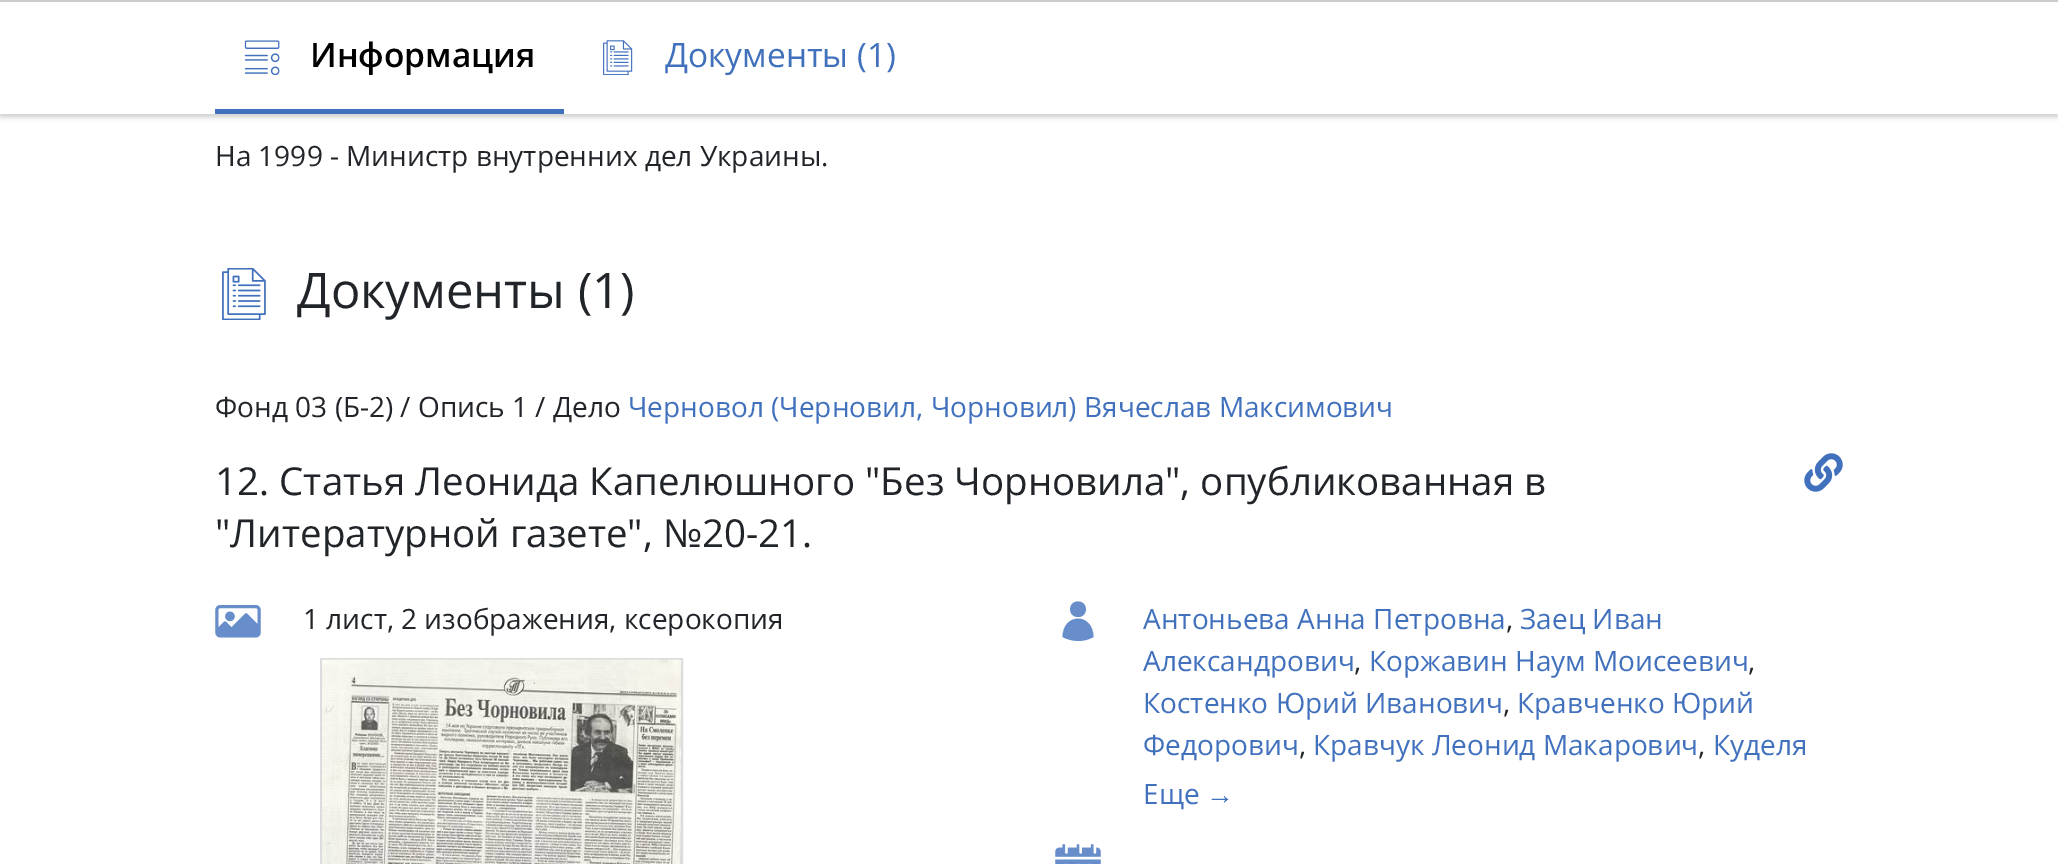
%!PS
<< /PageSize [2058 864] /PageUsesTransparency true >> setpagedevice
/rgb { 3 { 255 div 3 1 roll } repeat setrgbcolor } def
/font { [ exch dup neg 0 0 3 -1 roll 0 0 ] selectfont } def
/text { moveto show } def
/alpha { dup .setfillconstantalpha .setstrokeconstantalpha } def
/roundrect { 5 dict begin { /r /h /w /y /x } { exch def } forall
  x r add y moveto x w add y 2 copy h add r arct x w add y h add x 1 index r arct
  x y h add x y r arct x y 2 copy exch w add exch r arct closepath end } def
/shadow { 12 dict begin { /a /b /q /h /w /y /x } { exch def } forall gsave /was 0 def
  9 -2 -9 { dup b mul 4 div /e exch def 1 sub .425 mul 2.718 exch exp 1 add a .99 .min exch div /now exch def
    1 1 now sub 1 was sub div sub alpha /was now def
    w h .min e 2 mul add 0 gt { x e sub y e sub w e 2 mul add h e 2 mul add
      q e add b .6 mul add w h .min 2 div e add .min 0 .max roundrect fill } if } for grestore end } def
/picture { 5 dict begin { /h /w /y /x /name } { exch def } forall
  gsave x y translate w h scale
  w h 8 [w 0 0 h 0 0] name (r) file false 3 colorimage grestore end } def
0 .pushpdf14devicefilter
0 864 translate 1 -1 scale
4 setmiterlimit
255 255 255 rgb
0 0 2058 864 rectfill
204 204 204 rgb
0 4 2058 113 0 2.5 1 shadow
255 255 255 rgb
0 2 2058 112 rectfill
204 204 204 rgb
0 0 2058 2 rectfill
65 113 189 rgb
215 109 349 5 rectfill
(img_01.rgb) 244 40 36 35 picture
(img_02.rgb) 603 40 30 35 picture
(img_03.rgb) 222 268 44 52 picture
(img_04.rgb) 1804 453 39 39 picture
(img_05.rgb) 215 605 46 33 picture
221 221 221 rgb
2 setlinewidth
321 659 361 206 rectstroke
(img_06.rgb) 322 659 359 205 picture
103 141 202 rgb
1093.5 637 moveto -0.5 -24.5 -30.5 -24.5 -31 0 rcurveto 9.5 5 21.5 5.5 31 0 rcurveto closepath 1078 617 moveto 10.5 0 10.5 -15.5 0 -15.5 rcurveto -10.5 0 -10.5 15.5 0 15.5 rcurveto closepath fill
(img_07.rgb) 1055 844 46 20 picture
/OpenSans-SemiBold 33.5 font
0 0 0 rgb
(Информация) 310 67 text
/OpenSans-Regular 33.5 font
65 113 189 rgb
(Документы \(1\)) 665 67 text
/OpenSans-Regular 28 font
33 37 41 rgb
(На 1999 - Министр внутренних дел Украины.) 215 166 text
/OpenSans-Regular 49 font
(Документы \(1\)) 297 308 text
/OpenSans-Regular 28 font
(Фонд 03 \(Б-2\) / Опись 1 / Дело) 215 417 text
65 113 189 rgb
(Черновол \(Черновил, Чорновил\) Вячеслав Максимович) 628 417 text
/OpenSans-Regular 38.5 font
33 37 41 rgb
(12. Статья Леонида Капелюшного "Без Чорновила", опубликованная в) 215 495 text
("Литературной газете", №20-21.) 215 547 text
/OpenSans-Regular 28 font
(1 лист, 2 изображения, ксерокопия) 303 629 text
65 113 189 rgb
(Антоньева Анна Петровна) 1143 629 text
33 37 41 rgb
(,) 1506 629 text
65 113 189 rgb
(Заец Иван) 1520 629 text
(Александрович) 1143 671 text
33 37 41 rgb
(,) 1354 671 text
65 113 189 rgb
(Коржавин Наум Моисеевич) 1369 671 text
33 37 41 rgb
(,) 1748 671 text
65 113 189 rgb
(Костенко Юрий Иванович) 1143 713 text
33 37 41 rgb
(,) 1503 713 text
65 113 189 rgb
(Кравченко Юрий) 1517 713 text
(Федорович) 1143 755 text
33 37 41 rgb
(,) 1299 755 text
65 113 189 rgb
(Кравчук Леонид Макарович) 1313 755 text
33 37 41 rgb
(,) 1698 755 text
65 113 189 rgb
(Куделя) 1713 755 text
(Еще) 1143 804 text
/LiberationSans-Regular 28 font
(→) 1206 804 text
.poppdf14devicefilter showpage
